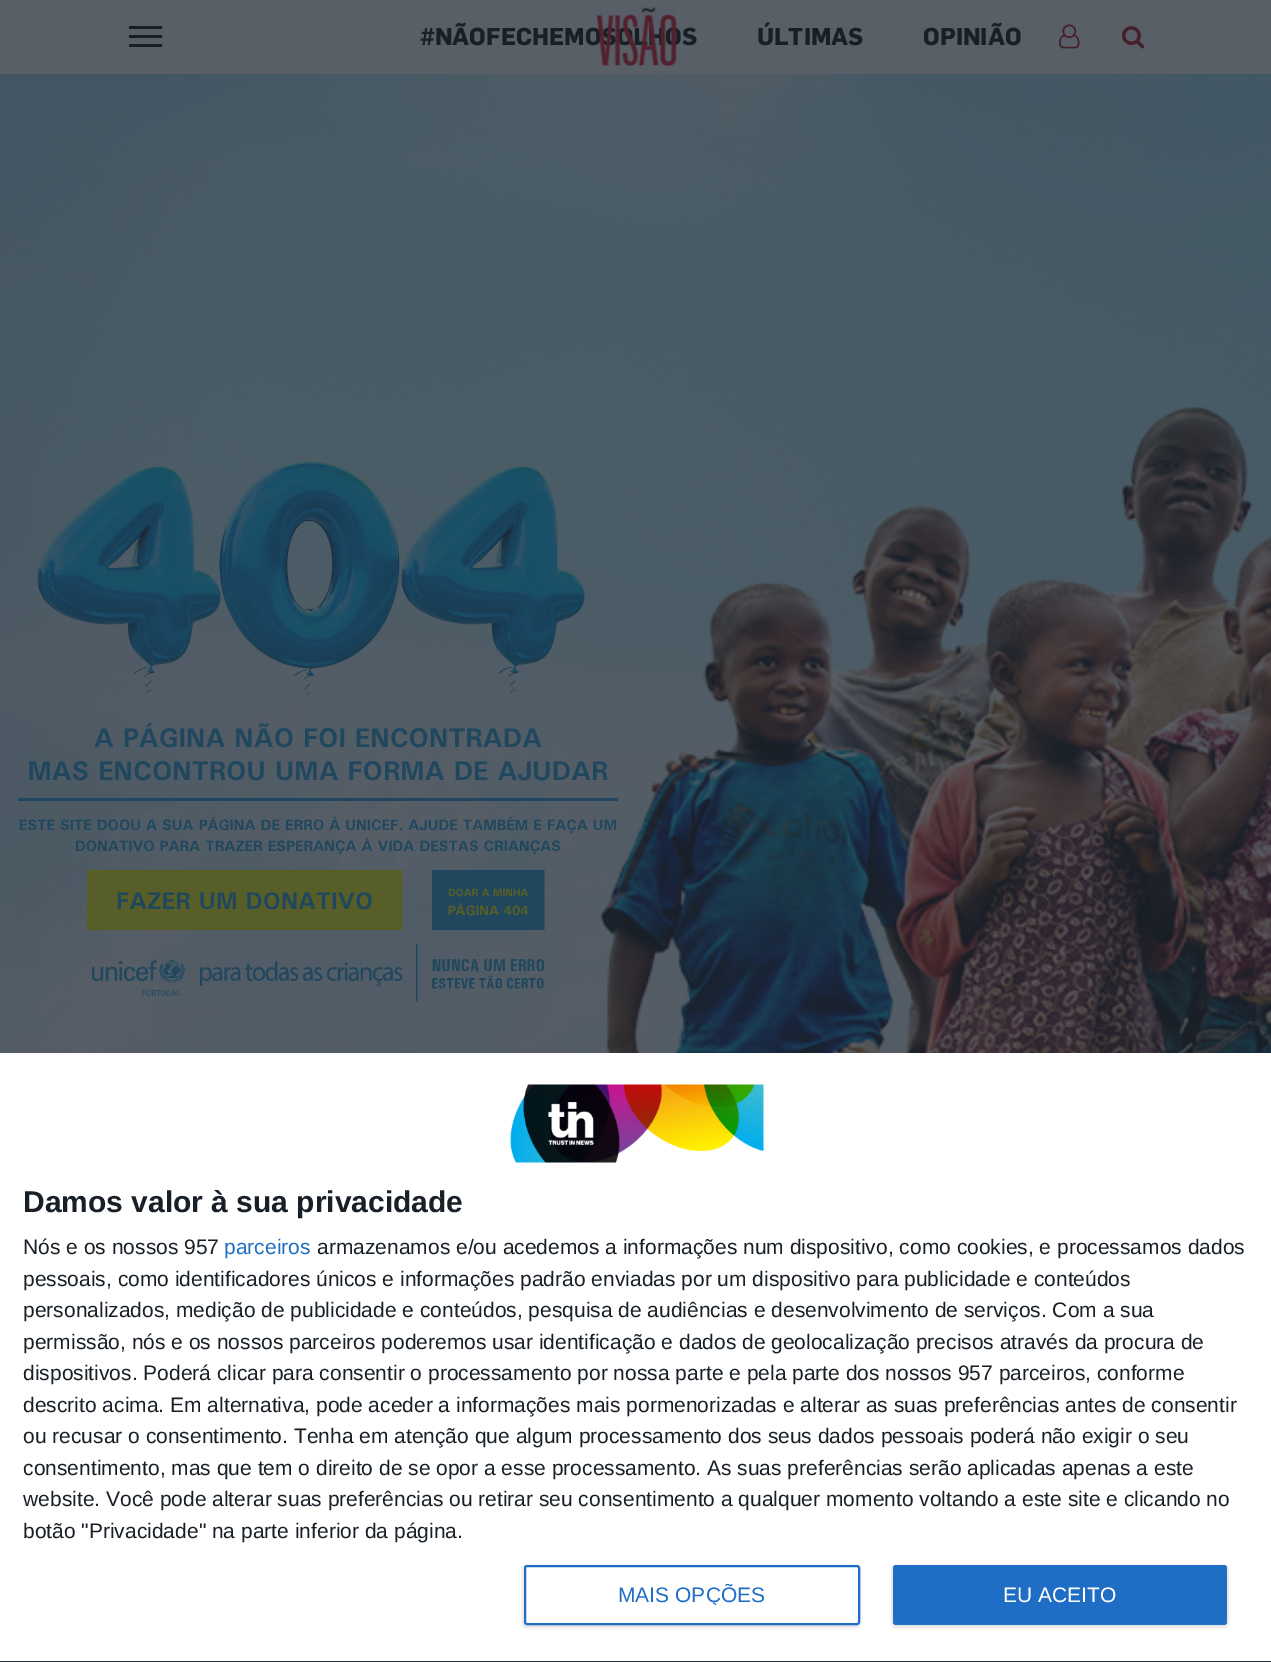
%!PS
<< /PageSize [1271 1662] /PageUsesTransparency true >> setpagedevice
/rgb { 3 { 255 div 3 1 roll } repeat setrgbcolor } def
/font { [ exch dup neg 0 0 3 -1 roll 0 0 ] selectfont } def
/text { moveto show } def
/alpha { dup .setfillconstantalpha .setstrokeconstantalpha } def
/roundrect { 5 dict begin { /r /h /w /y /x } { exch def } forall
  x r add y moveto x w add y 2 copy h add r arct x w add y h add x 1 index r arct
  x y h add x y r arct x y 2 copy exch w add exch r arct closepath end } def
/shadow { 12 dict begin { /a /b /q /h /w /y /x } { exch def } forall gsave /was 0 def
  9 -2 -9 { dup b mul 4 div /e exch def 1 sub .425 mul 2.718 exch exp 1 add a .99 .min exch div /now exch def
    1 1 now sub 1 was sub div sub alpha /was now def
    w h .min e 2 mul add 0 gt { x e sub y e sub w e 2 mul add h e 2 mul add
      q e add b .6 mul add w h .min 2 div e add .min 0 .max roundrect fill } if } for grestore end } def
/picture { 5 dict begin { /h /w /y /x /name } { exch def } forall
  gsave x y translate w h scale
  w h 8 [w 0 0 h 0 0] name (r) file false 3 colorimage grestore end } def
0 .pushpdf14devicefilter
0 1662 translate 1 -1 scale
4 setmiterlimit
35 45 55 rgb
0 0 1271 1662 rectfill
89 95 103 rgb
0 0 1271 74 rectfill
25 31 39 rgb
129 26 33 3 rectfill
129 35 33 3 rectfill
129 44 33 3 rectfill
(img_02.rgb) 1059 24 21 25 picture
(img_03.rgb) 1122 26 23 23 picture
(img_04.rgb) 0 74 1271 979 picture
255 255 255 rgb
0 1053 1271 608 rectfill
(img_05.rgb) 510 1084 254 79 picture
0 0 0 rgb
522 1565 339 63 5 1 0.1 shadow
255 255 255 rgb
525 1566 334 58 2 roundrect gsave fill grestore
32 109 197 rgb
2 setlinewidth
stroke
0 0 0 rgb
891 1565 338 63 5 1 0.1 shadow
32 109 197 rgb
893 1565 334 60 3 roundrect fill
/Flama-Bold 24 font
25 31 39 rgb
(#NÃOFECHEMOSOLHOS) 420 45 text
(img_01.rgb) 596 7 81 59 picture
(ÚLTIMAS) 757 45 text
(OPINIÃO) 923 45 text
/LiberationSans-Bold 30 font
(Damos valor à sua privacidade) 23 1212 text
/LiberationSans-Regular 21 font
(Nós e os nossos 957) 23 1254 text
32 109 197 rgb
(parceiros) 224 1254 text
25 31 39 rgb
(armazenamos e/ou acedemos a informações num dispositivo, como cookies, e processamos dados) 317 1254 text
(pessoais, como identificadores únicos e informações padrão enviadas por um dispositivo para publicidade e conteúdos) 23 1286 text
(personalizados, medição de publicidade e conteúdos, pesquisa de audiências e desenvolvimento de serviços. Com a sua) 23 1317 text
(permissão, nós e os nossos parceiros poderemos usar identificação e dados de geolocalização precisos através da procura de) 23 1349 text
(dispositivos. Poderá clicar para consentir o processamento por nossa parte e pela parte dos nossos 957 parceiros, conforme) 23 1380 text
(descrito acima. Em alternativa, pode aceder a informações mais pormenorizadas e alterar as suas preferências antes de consentir) 23 1412 text
(ou recusar o consentimento. Tenha em atenção que algum processamento dos seus dados pessoais poderá não exigir o seu) 23 1443 text
(consentimento, mas que tem o direito de se opor a esse processamento. As suas preferências serão aplicadas apenas a este) 23 1475 text
(website. Você pode alterar suas preferências ou retirar seu consentimento a qualquer momento voltando a este site e clicando no) 23 1506 text
(botão "Privacidade" na parte inferior da página.) 23 1538 text
gsave
618 1584 147 21 rectclip
32 109 197 rgb
(MAIS OPÇÕES) 618 1602 text
grestore
255 255 255 rgb
(EU ACEITO) 1003 1602 text
.poppdf14devicefilter showpage
